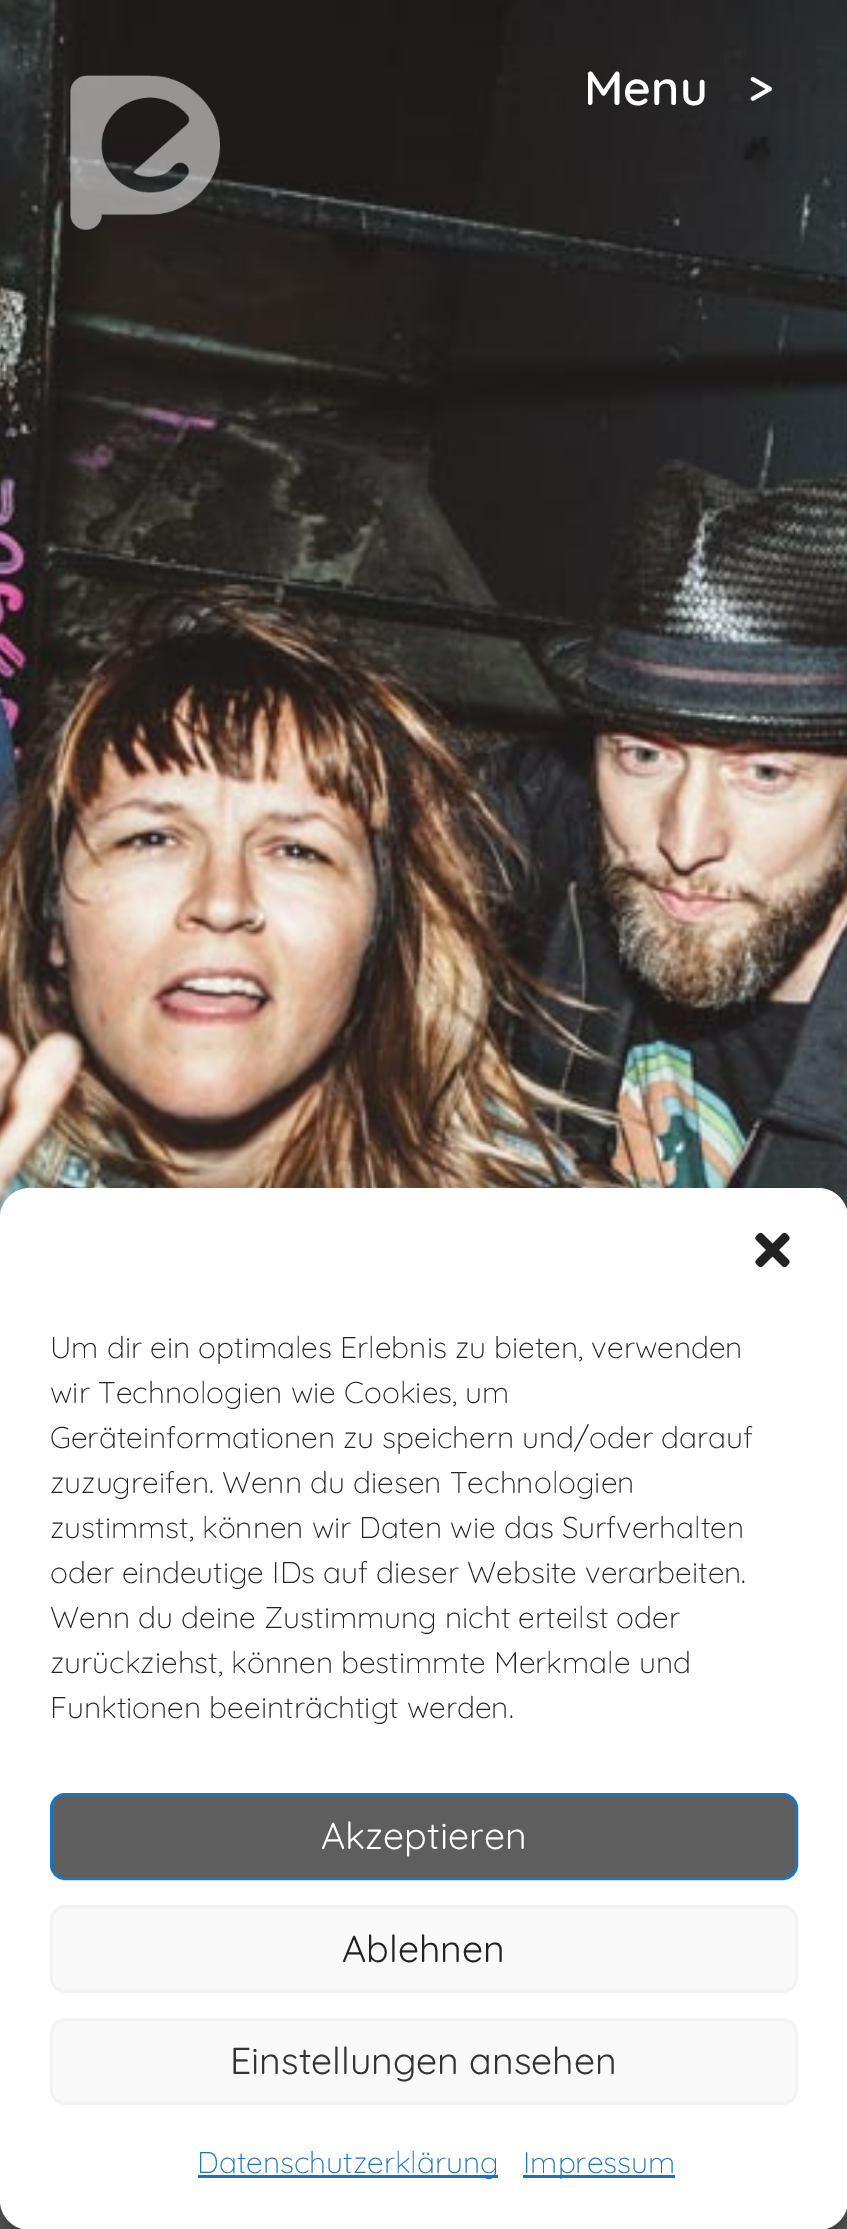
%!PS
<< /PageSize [847 2229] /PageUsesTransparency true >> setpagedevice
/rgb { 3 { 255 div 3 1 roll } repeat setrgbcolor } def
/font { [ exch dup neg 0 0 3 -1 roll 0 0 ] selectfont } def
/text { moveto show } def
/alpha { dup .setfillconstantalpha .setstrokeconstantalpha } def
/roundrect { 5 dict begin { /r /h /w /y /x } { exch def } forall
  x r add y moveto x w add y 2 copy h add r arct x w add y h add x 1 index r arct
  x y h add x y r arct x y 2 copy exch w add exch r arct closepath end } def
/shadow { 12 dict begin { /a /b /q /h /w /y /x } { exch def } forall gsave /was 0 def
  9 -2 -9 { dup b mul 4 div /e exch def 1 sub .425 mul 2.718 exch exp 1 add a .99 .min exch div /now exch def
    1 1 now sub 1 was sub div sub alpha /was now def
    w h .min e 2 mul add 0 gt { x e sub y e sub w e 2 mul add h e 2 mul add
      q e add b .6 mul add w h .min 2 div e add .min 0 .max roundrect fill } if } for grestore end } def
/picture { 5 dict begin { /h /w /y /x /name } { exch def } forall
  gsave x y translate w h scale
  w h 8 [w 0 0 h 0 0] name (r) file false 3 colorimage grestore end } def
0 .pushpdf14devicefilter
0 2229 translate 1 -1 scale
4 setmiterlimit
94 94 94 rgb
0 0 847 2229 rectfill
(img_01.rgb) 0 0 847 1218 picture
(img_02.rgb) 70 75 150 155 picture
0 0 0 rgb
0 1203 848 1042 30 7.5 0.23 shadow
0 1213 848 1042 30 25 0.19 shadow
255 255 255 rgb
0 1188 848 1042 30 roundrect fill
(img_03.rgb) 755 1232 35 36 picture
94 94 94 rgb
51.5 1794.5 745 84 13.5 roundrect gsave fill grestore
30 115 190 rgb
3 setlinewidth
stroke
249 249 249 rgb
51.5 1906.5 745 85 13.5 roundrect gsave fill grestore
242 242 242 rgb
stroke
249 249 249 rgb
51.5 2019.5 745 84 13.5 roundrect gsave fill grestore
242 242 242 rgb
stroke
30 115 190 rgb
198 2175 300 3 rectfill
523 2175 152 3 rectfill
/Quicksand-SemiBold 48 font
255 255 255 rgb
(Menu   >) 584 105 text
/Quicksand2-Light 30 font
34 34 34 rgb
(Um dir ein optimales Erlebnis zu bieten, verwenden) 50 1358 text
(wir Technologien wie Cookies, um) 50 1403 text
(Geräteinformationen zu speichern und/oder darauf) 50 1448 text
(zuzugreifen. Wenn du diesen Technologien) 50 1493 text
(zustimmst, können wir Daten wie das Surfverhalten) 50 1538 text
(oder eindeutige IDs auf dieser Website verarbeiten.) 50 1583 text
(Wenn du deine Zustimmung nicht erteilst oder) 50 1628 text
(zurückziehst, können bestimmte Merkmale und) 50 1673 text
(Funktionen beeinträchtigt werden.) 50 1718 text
/Quicksand-Light 37.5 font
255 255 255 rgb
(Akzeptieren) 321 1849 text
34 34 34 rgb
(Ablehnen) 342 1962 text
51 51 51 rgb
(Einstellungen ansehen) 230 2074 text
/Quicksand2-Light 30 font
30 115 190 rgb
(Datenschutzerklärung) 197 2173 text
(Impressum) 523 2173 text
.poppdf14devicefilter showpage
